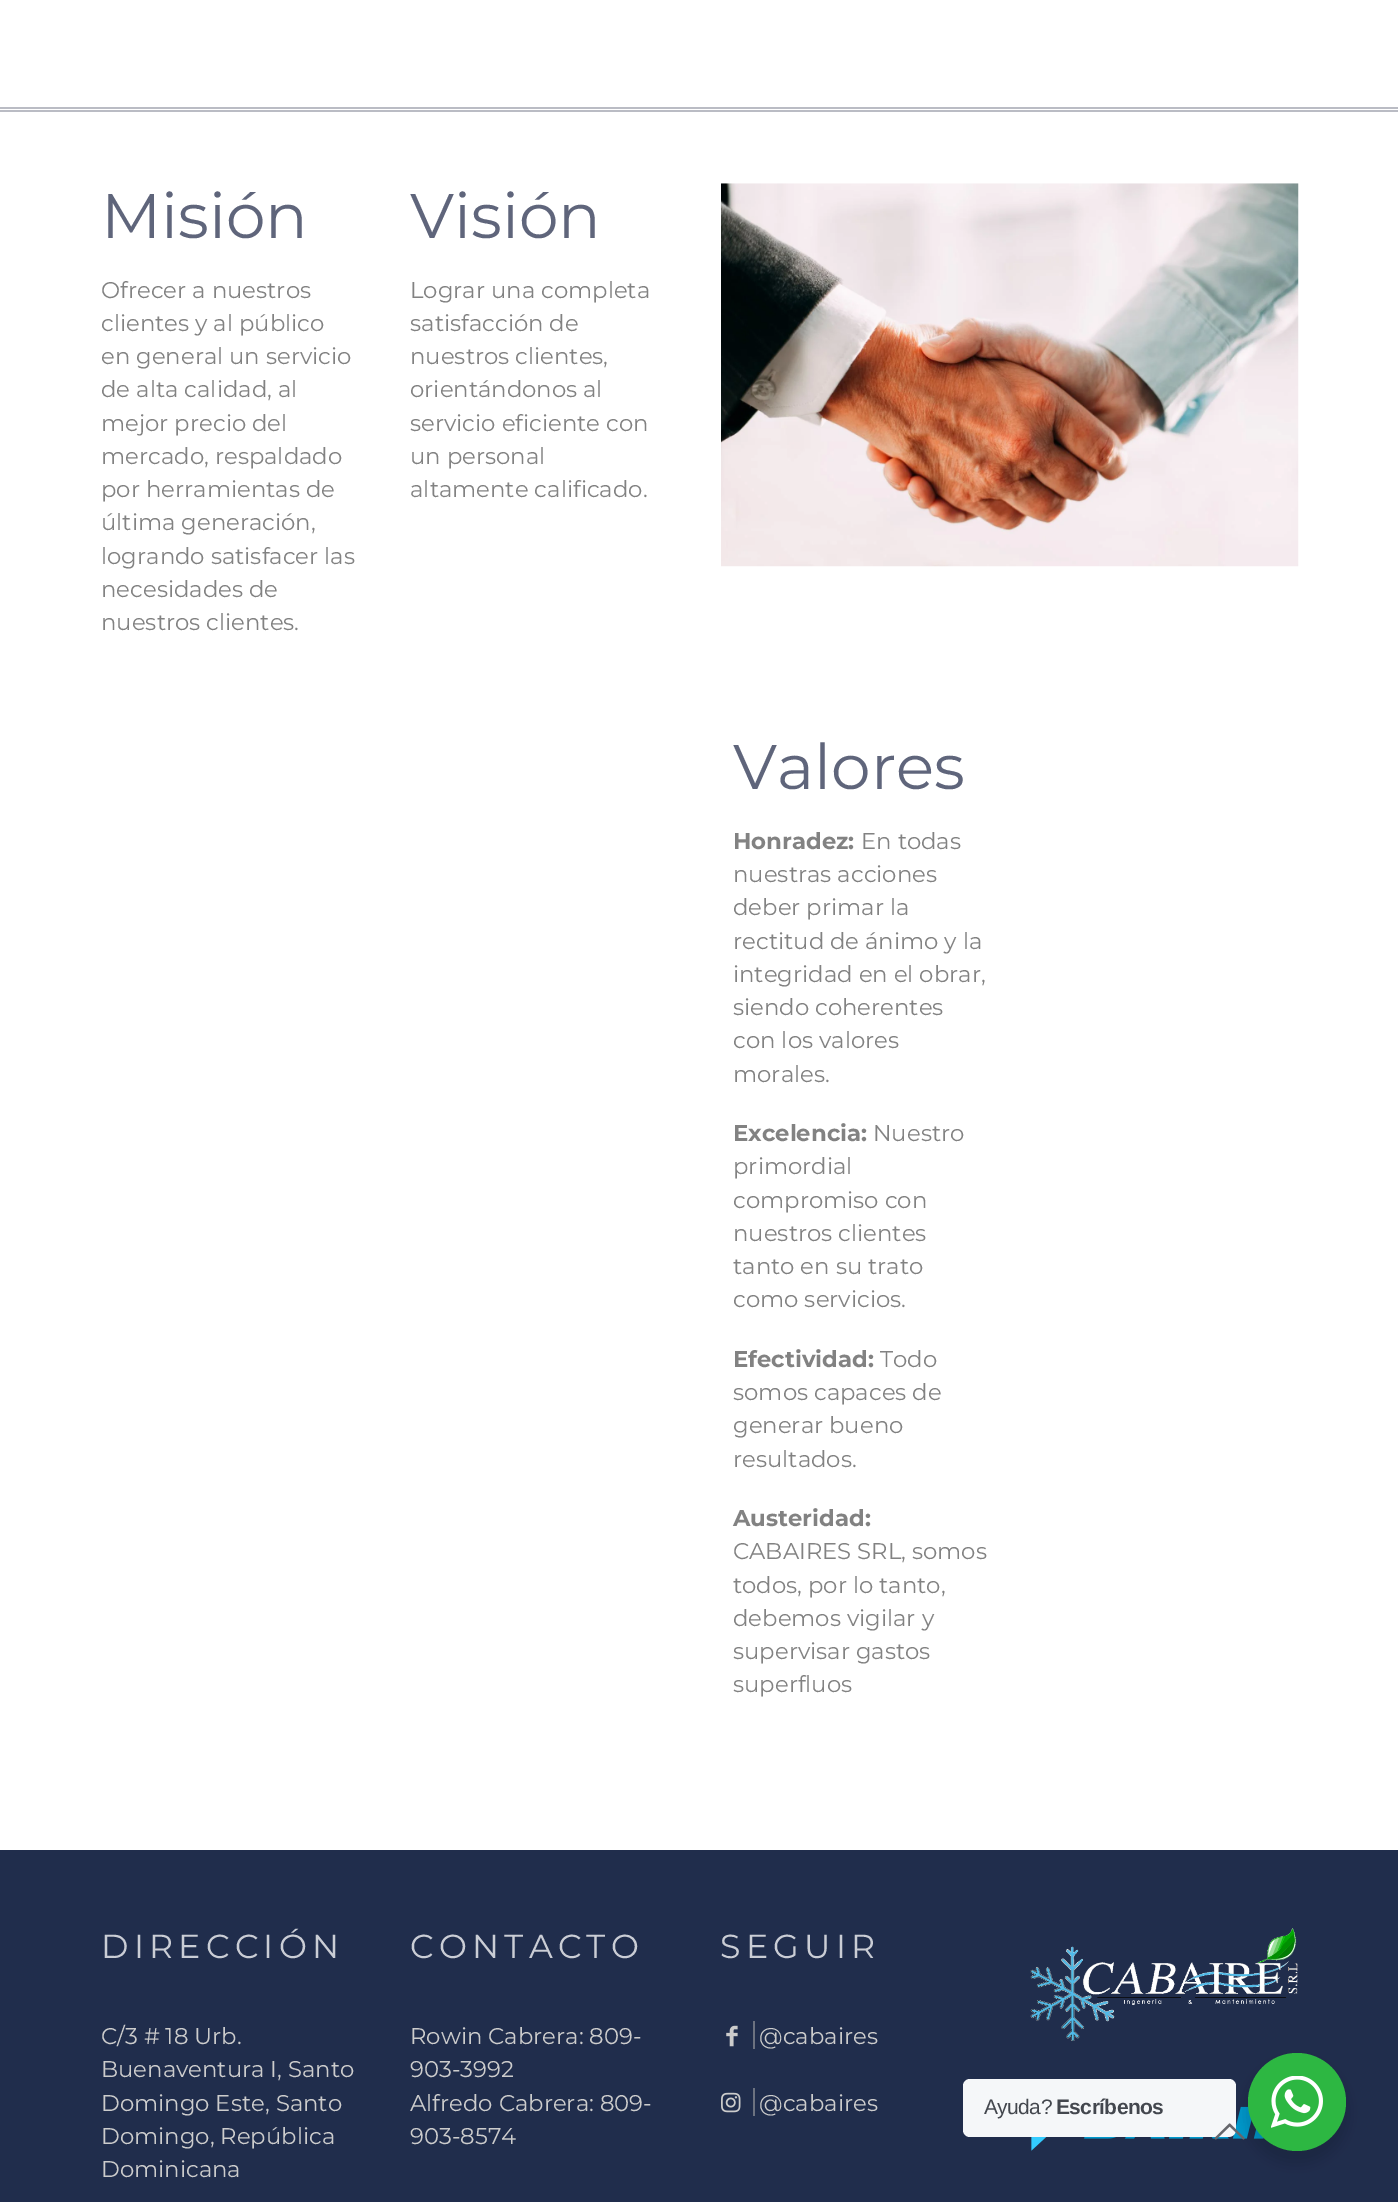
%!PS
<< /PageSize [1398 2202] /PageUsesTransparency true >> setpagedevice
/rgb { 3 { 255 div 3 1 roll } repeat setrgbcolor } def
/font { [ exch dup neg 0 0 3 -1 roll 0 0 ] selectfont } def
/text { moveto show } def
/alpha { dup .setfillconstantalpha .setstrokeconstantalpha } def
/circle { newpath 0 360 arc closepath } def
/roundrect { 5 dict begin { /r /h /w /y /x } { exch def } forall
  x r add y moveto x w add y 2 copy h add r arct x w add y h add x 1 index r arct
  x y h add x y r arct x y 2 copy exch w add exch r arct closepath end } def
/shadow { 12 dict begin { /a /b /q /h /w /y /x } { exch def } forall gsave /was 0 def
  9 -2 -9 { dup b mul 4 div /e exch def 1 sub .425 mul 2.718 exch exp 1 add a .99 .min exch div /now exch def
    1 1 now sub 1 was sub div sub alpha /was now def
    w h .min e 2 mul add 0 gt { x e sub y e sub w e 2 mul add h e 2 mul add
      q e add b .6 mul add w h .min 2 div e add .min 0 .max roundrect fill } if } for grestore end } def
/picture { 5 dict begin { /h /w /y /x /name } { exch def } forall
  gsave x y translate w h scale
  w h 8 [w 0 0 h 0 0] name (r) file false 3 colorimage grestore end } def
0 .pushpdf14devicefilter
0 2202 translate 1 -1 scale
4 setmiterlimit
255 255 255 rgb
0 0 1398 2202 rectfill
186 188 196 rgb
0 107 1398 2 rectfill
0 110 1398 2 rectfill
(img_01.rgb) 721 183 578 384 picture
32 45 76 rgb
0 1850 1398 352 rectfill
108 114 128 rgb
753 2021 2 28 rectfill
(img_02.rgb) 726 2025 12 22 picture
753 2088 2 28 rectfill
(img_03.rgb) 721 2092 20 21 picture
(img_04.rgb) 1030 1928 268 113 picture
(img_05.rgb) 1031 2106 233 45 picture
0 0 0 rgb
1244 2060 105 105 52.5 7 0.14 shadow
245 247 249 rgb
963 2079 273 58 7 roundrect fill
45 183 66 rgb
1297 2102 49 circle fill
(img_06.rgb) 1271 2076 52 52 picture
(img_07.rgb) 1214 2123 31 17 picture
/Montserrat-Regular 63 font
95 101 123 rgb
(Misión) 101 238 text
/Montserrat-Regular 22.75 font
130 130 130 rgb
(Ofrecer a nuestros) 101 298 text
(clientes y al público) 101 331 text
(en general un servicio) 101 364 text
(de alta calidad, al) 101 397 text
(mejor precio del) 101 431 text
(mercado, respaldado) 101 464 text
(por herramientas de) 101 497 text
(última generación,) 101 530 text
(logrando satisfacer las) 101 564 text
(necesidades de) 101 597 text
(nuestros clientes.) 101 630 text
/Montserrat-Regular 63 font
95 101 123 rgb
(Visión) 410 238 text
/Montserrat-Regular 22.75 font
130 130 130 rgb
(Lograr una completa) 410 298 text
(satisfacción de) 410 331 text
(nuestros clientes,) 410 364 text
(orientándonos al) 410 397 text
(servicio eficiente con) 410 431 text
(un personal) 410 464 text
(altamente calificado.) 410 497 text
/Montserrat-Regular 63 font
95 101 123 rgb
(Valores) 733 789 text
/Montserrat-Bold 22.75 font
130 130 130 rgb
(Honradez:) 733 849 text
/Montserrat-Regular 22.75 font
(En todas) 861 849 text
(nuestras acciones) 733 882 text
(deber primar la) 733 915 text
(rectitud de ánimo y la) 733 949 text
(integridad en el obrar,) 733 982 text
(siendo coherentes) 733 1015 text
(con los valores) 733 1048 text
(morales.) 733 1082 text
/Montserrat-Bold 22.75 font
(Excelencia:) 733 1141 text
/Montserrat-Regular 22.75 font
(Nuestro) 873 1141 text
(primordial) 733 1174 text
(compromiso con) 733 1208 text
(nuestros clientes) 733 1241 text
(tanto en su trato) 733 1274 text
(como servicios.) 733 1307 text
/Montserrat-Bold 22.75 font
(Efectividad:) 733 1367 text
/Montserrat-Regular 22.75 font
(Todo) 880 1367 text
(somos capaces de) 733 1400 text
(generar bueno) 733 1433 text
(resultados.) 733 1467 text
/Montserrat-Bold 22.75 font
(Austeridad:) 733 1526 text
/Montserrat-Regular 22.75 font
(CABAIRES SRL, somos) 733 1559 text
(todos, por lo tanto,) 733 1593 text
(debemos vigilar y) 733 1626 text
(supervisar gastos) 733 1659 text
(superfluos) 733 1692 text
/Montserrat-Regular 33.25 font
202 205 213 rgb
101 1958 moveto 5.25 0 (DIRECCIÓN) ashow
/Montserrat-Regular 22.75 font
204 204 204 rgb
(C/3 # 18 Urb.) 101 2044 text
(Buenaventura I, Santo) 101 2077 text
(Domingo Este, Santo) 101 2111 text
(Domingo, República) 101 2144 text
(Dominicana) 101 2177 text
/Montserrat-Regular 33.25 font
202 205 213 rgb
410 1958 moveto 5.25 0 (CONTACTO) ashow
/Montserrat-Regular 22.75 font
204 204 204 rgb
(Rowin Cabrera: 809-) 410 2044 text
(903-3992) 410 2077 text
(Alfredo Cabrera: 809-) 410 2111 text
(903-8574) 410 2144 text
/Montserrat-Regular 33.25 font
202 205 213 rgb
720 1958 moveto 5.25 0 (SEGUIR) ashow
/Montserrat-Regular 22.75 font
204 204 204 rgb
(@cabaires) 759 2044 text
(@cabaires) 759 2111 text
/LiberationSans-Regular 21 font
67 71 78 rgb
984 2114 moveto -0.6 0 (Ayuda?) ashow
/LiberationSans-Bold 21 font
1056 2114 moveto -0.6 0 (Escríbenos) ashow
.poppdf14devicefilter showpage
